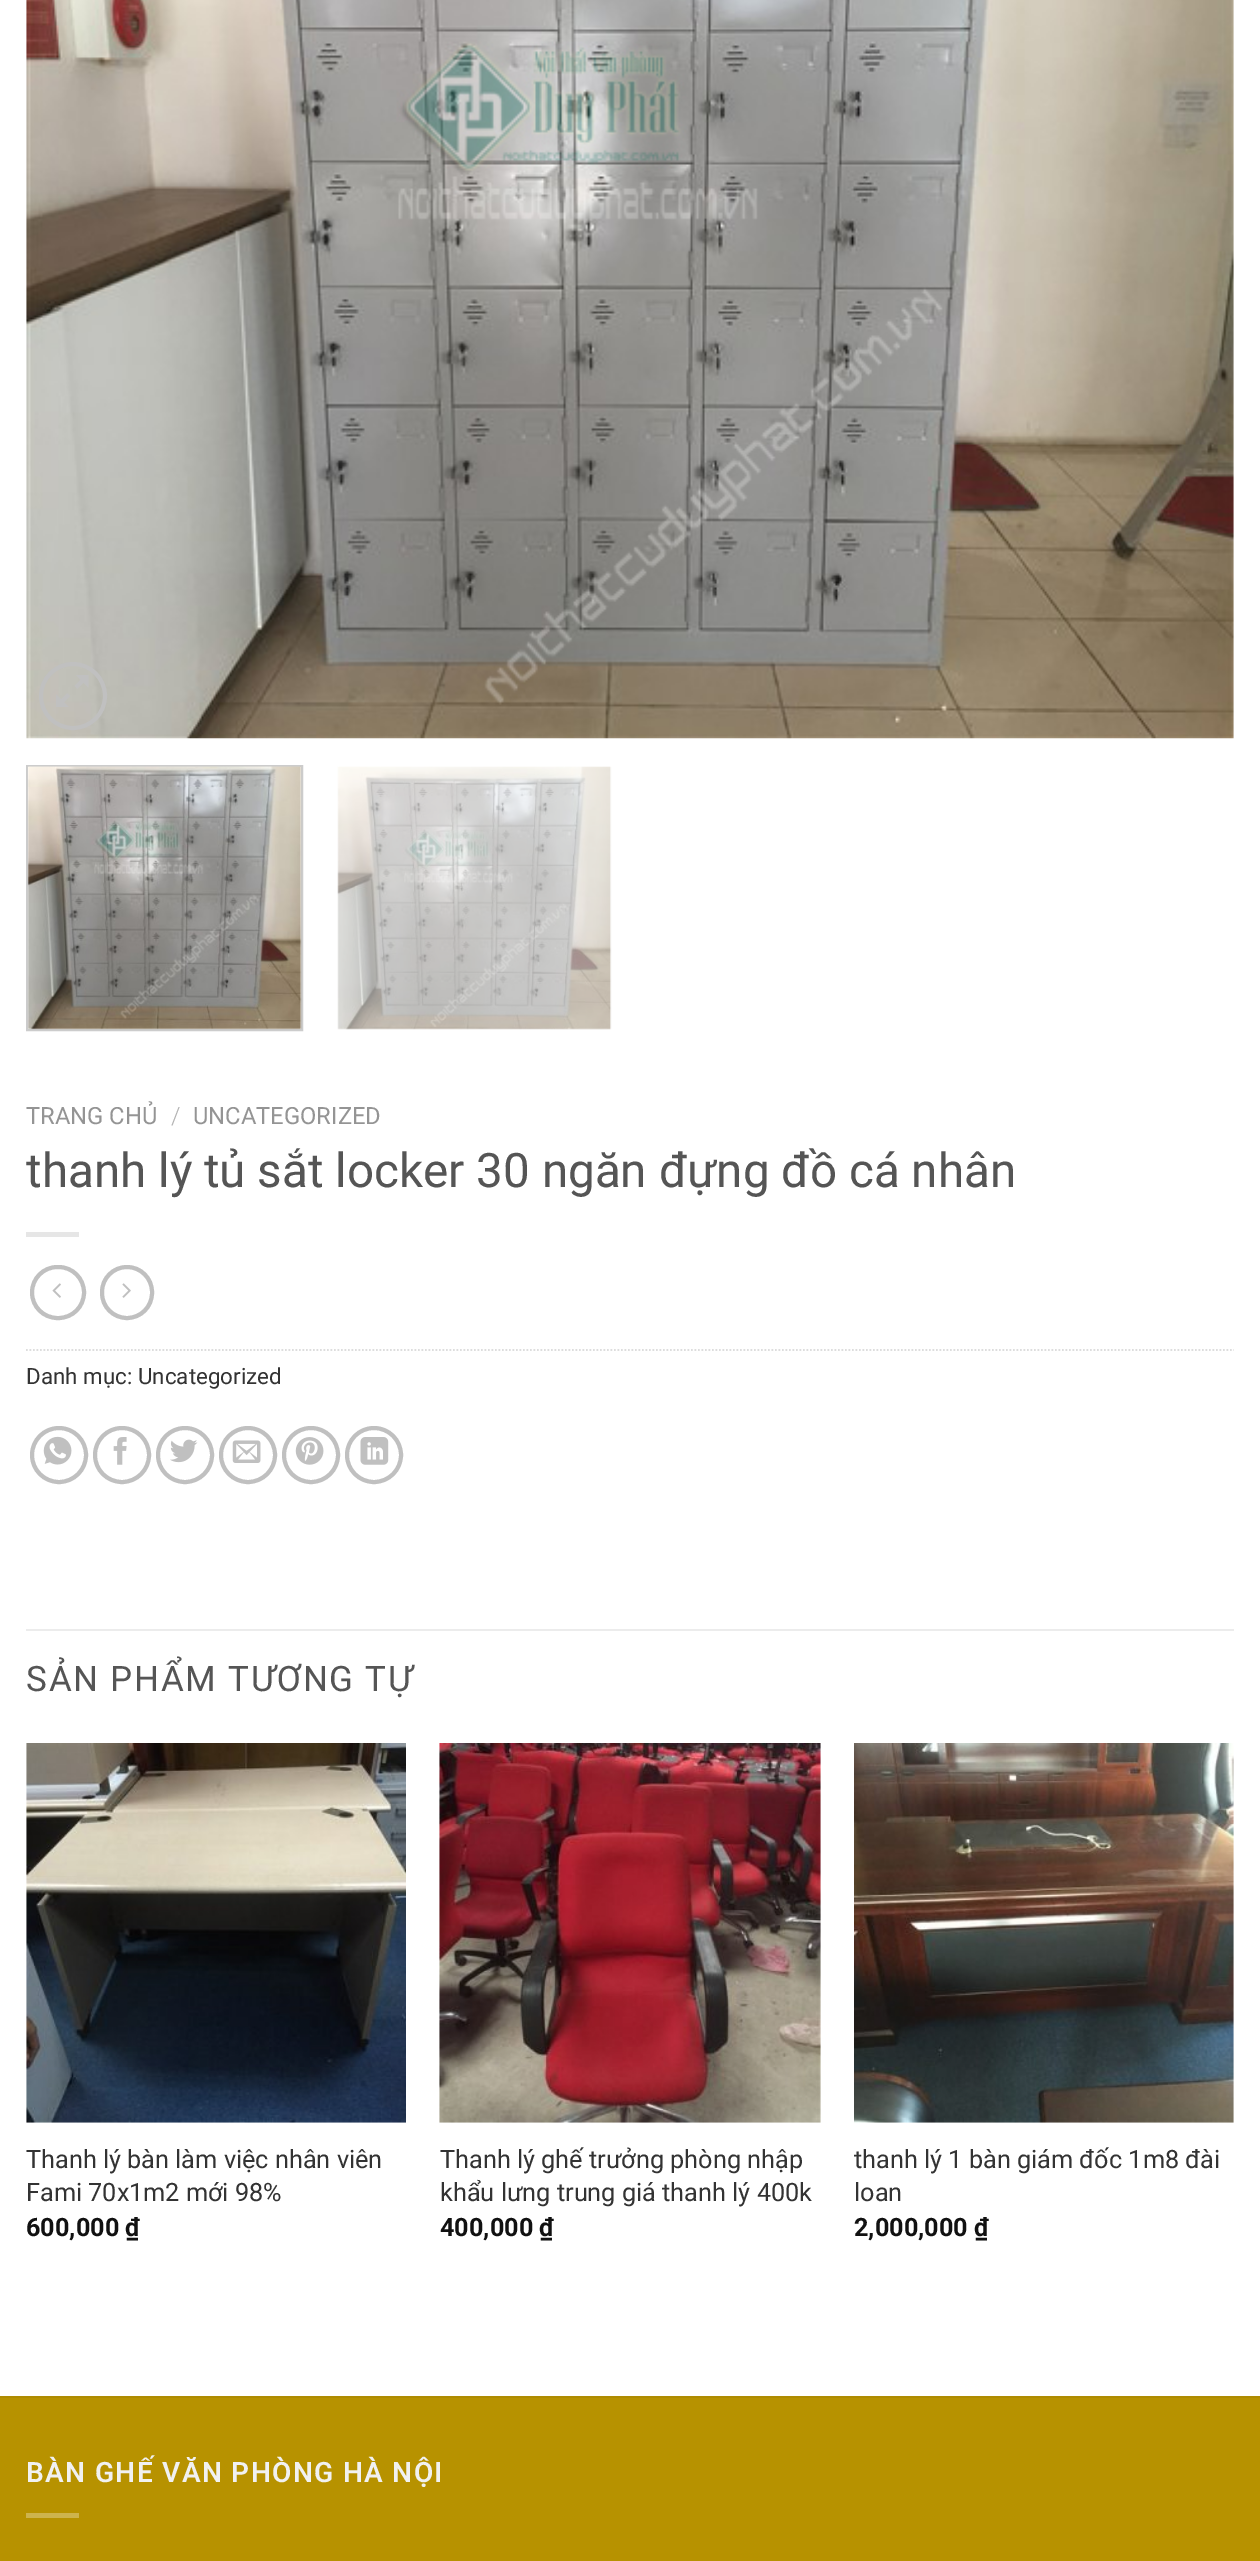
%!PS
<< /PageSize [1260 2561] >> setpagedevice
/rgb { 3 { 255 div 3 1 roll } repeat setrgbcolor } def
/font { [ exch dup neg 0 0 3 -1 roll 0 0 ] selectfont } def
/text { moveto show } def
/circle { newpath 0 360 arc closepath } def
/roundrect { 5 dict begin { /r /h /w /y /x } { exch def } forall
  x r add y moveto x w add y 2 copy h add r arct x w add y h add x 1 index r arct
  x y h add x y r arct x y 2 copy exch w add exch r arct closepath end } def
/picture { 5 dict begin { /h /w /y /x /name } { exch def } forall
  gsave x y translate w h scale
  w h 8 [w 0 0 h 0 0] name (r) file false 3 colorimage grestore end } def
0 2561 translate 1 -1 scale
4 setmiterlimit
255 255 255 rgb
0 0 1260 2561 rectfill
(img_01.rgb) 26 0 1208 739 picture
192 192 192 rgb
4 setlinewidth
73 696 32 circle stroke
(img_02.rgb) 56 675 33 32 picture
204 204 204 rgb
2 setlinewidth
27 766 275 264 rectstroke
(img_03.rgb) 27 766 275 264 picture
(img_04.rgb) 337 766 275 264 picture
230 230 230 rgb
26 1232 53 5 rectfill
192 192 192 rgb
4 setlinewidth
32 1267 52 51 25.5 roundrect stroke
(img_05.rgb) 52 1283 9 15 picture
102 1267 50 51 25 roundrect stroke
(img_06.rgb) 122 1283 9 15 picture
221 221 221 rgb
1.8 setlinewidth
[1.75 1.75] 0 setdash
26 1350 moveto 1208 0 rlineto stroke
192 192 192 rgb
4 setlinewidth
[] 0 setdash
59 1455 27 circle stroke
(img_07.rgb) 43 1436 29 29 picture
122 1455 27 circle stroke
(img_08.rgb) 113 1437 14 28 picture
185 1455 27 circle stroke
(img_09.rgb) 170 1439 28 24 picture
248 1455 27 circle stroke
(img_10.rgb) 232 1440 29 23 picture
311 1455 27 circle stroke
(img_11.rgb) 295 1437 29 28 picture
374 1455 27 circle stroke
(img_12.rgb) 360 1437 29 28 picture
236 236 236 rgb
26 1629 1208 2 rectfill
(img_13.rgb) 26 1743 380 380 picture
(img_14.rgb) 439 1743 382 380 picture
(img_15.rgb) 854 1743 380 380 picture
183 146 0 rgb
0 2398 1260 163 rectfill
174 139 0 rgb
0 2396 1260 2 rectfill
205 179 77 rgb
26 2513 53 5 rectfill
/Roboto-Regular 23.75 font
148 148 148 rgb
(TRANG CHỦ) 26 1124 text
/Roboto-Light 23.75 font
178 178 178 rgb
(/) 171 1124 text
/Roboto-Regular 23.75 font
148 148 148 rgb
(UNCATEGORIZED) 193 1124 text
/Roboto-Regular 47.6 font
85 85 85 rgb
(thanh lý tủ sắt locker 30 ngăn đựng đồ cá nhân) 26 1187 text
/Roboto-Regular 22.4 font
51 51 51 rgb
(Danh mục: Uncategorized) 26 1384 text
/Roboto-Regular 35 font
85 85 85 rgb
26 1691 moveto 1.75 0 (SẢN PHẨM TƯƠNG TỰ) ashow
/Roboto-Regular 25.25 font
51 51 51 rgb
(Thanh lý bàn làm việc nhân viên) 26 2168 text
(Fami 70x1m2 mới 98%) 26 2201 text
/Roboto-Bold 25.25 font
17 17 17 rgb
(600,000 ₫) 26 2236 text
/Roboto-Regular 25.25 font
51 51 51 rgb
(Thanh lý ghế trưởng phòng nhập) 440 2168 text
(khẩu lưng trung giá thanh lý 400k) 440 2201 text
/Roboto-Bold 25.25 font
17 17 17 rgb
(400,000 ₫) 440 2236 text
/Roboto-Regular 25.25 font
51 51 51 rgb
(thanh lý 1 bàn giám đốc 1m8 đài) 854 2168 text
(loan) 854 2201 text
/Roboto-Bold 25.25 font
17 17 17 rgb
(2,000,000 ₫) 854 2236 text
/Roboto-SemiBold 28 font
241 241 241 rgb
26 2482 moveto 1.4 0 (BÀN GHẾ VĂN PHÒNG HÀ NỘI) ashow
showpage
